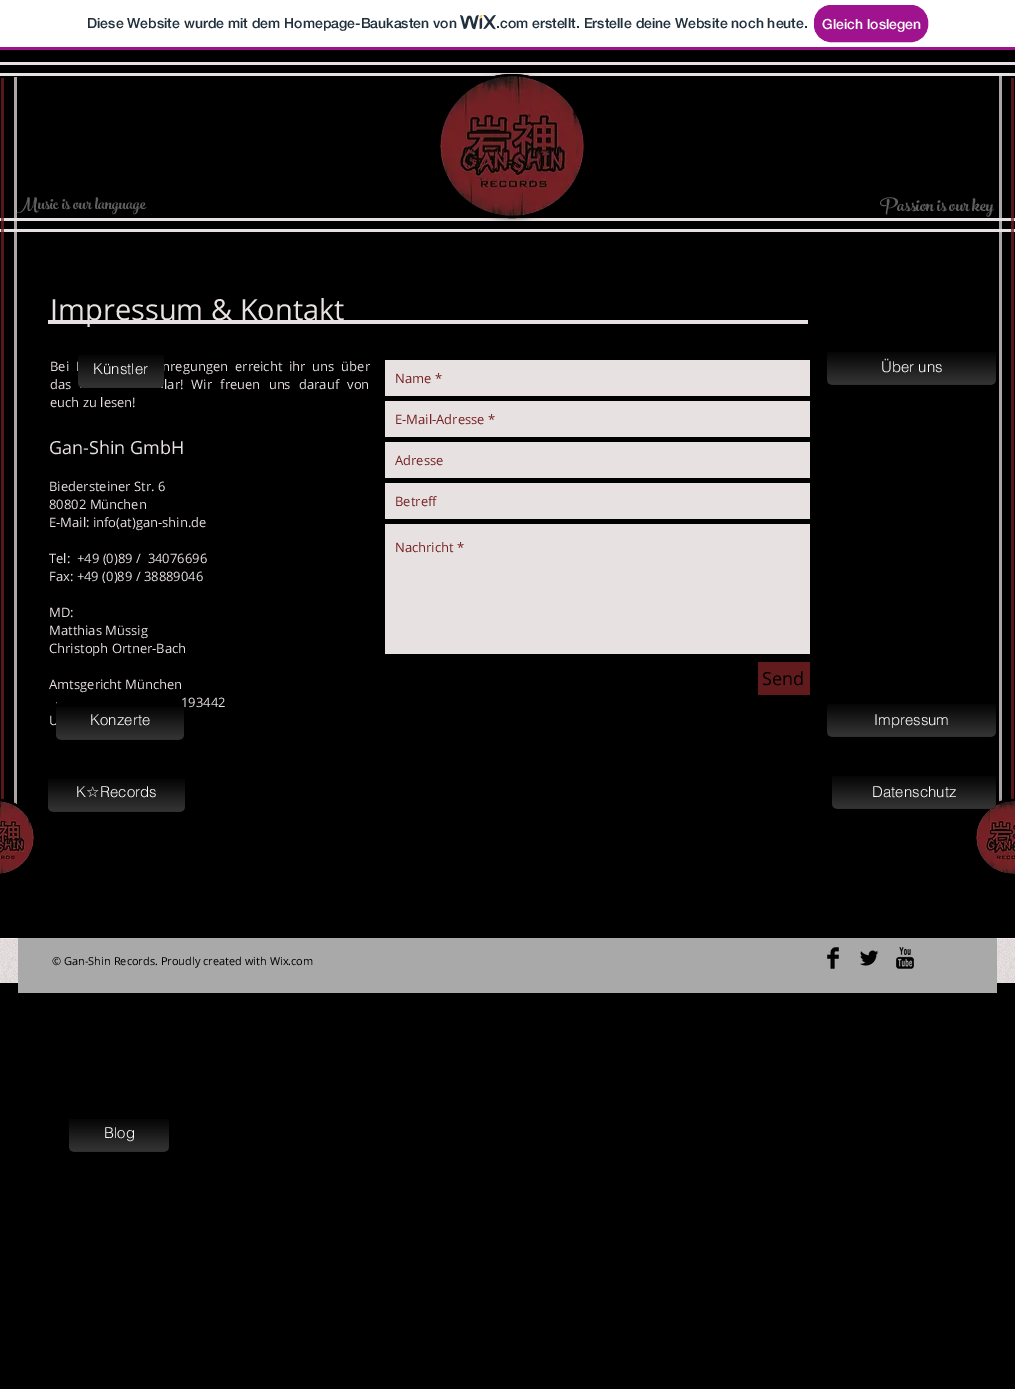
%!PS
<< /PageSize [1015 1389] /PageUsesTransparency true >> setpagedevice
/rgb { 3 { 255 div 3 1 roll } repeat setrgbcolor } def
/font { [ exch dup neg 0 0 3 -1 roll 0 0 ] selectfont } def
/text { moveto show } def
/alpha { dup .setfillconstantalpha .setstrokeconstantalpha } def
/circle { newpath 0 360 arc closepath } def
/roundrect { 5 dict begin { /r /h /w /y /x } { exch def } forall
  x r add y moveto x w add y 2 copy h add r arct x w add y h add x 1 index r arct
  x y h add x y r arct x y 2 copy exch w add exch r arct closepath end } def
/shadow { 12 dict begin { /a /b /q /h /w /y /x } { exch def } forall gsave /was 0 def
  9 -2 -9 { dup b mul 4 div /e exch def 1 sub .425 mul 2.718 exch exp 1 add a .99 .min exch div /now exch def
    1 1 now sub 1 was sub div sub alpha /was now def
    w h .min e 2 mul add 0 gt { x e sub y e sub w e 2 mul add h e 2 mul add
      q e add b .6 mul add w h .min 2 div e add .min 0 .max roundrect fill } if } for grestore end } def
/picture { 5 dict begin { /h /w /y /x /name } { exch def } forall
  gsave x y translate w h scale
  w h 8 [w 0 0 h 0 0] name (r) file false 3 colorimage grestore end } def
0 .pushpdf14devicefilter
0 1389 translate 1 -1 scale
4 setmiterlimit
0 0 0 rgb
0 0 1015 1389 rectfill
255 255 255 rgb
0 0 1015 47 rectfill
160 19 142 rgb
0 47 1015 3 rectfill
(img_01.rgb) 460 15 36 15 picture
814.5 5.5 113 36 16.5 roundrect gsave fill grestore
stroke
232 225 225 rgb
0 62 1015 3 rectfill
0 229 1015 3 rectfill
0 73 1015 3 rectfill
0 218 1015 3 rectfill
0 0 0 rgb
438 75 148 144 72 2 0.4 shadow
512 74 moveto 41 0 74 32 74 72 rcurveto 0 40 -33 72 -74 72 rcurveto -41 0 -74 -32 -74 -72 rcurveto 0 -40 33 -72 74 -72 rcurveto closepath fill
2 setlinewidth
512 75 moveto 40.5 0 73 32 73 71 rcurveto 0 39 -32.5 71 -73 71 rcurveto -40.5 0 -73 -32 -73 -71 rcurveto 0 -39 32.5 -71 73 -71 rcurveto closepath stroke
(img_02.rgb) 440 76 144 140 picture
0.74 alpha
117 33 35 rgb
1 78 3 722 rectfill
232 225 225 rgb
999 76 3 733 rectfill
117 33 35 rgb
1011 78 3 722 rectfill
1 alpha
232 225 225 rgb
48 320 760 4 rectfill
385 360 425 36 rectfill
385 401 425 36 rectfill
385 442 425 36 rectfill
385 483 425 36 rectfill
385 524 425 130 rectfill
97 27 29 rgb
758 662 52 33 rectfill
0 0 0 rgb
974 800 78 77 38.5 2 0.4 shadow
975 800 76 75 37.5 roundrect gsave fill grestore
stroke
(img_04.rgb) 976 801 39 73 picture
(img_05.rgb) 827 352 169 33 picture
(img_09.rgb) 48 779 137 33 picture
(img_10.rgb) 827 704 169 33 picture
832 774 164 35 5 roundrect fill
(img_11.rgb) 832 776 164 33 picture
(img_12.rgb) 69 1119 100 33 picture
232 225 225 rgb
0 939 1015 44 rectfill
246 243 243 rgb
0 938 1015 1 rectfill
(img_13.rgb) 0 938 1015 45 picture
169 169 169 rgb
18 938 979 55 rectfill
(img_14.rgb) 827 947 12 22 picture
(img_15.rgb) 860 950 19 16 picture
(img_16.rgb) 896 947 18 22 picture
/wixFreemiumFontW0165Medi-Medium 14 font
32 48 60 rgb
(Diese Website wurde mit dem Homepage-Baukasten von) 87 28 text
(.com erstellt. Erstelle deine Website noch heute.) 496 28 text
255 255 255 rgb
(Gleich loslegen) 822 29 text
/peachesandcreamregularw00-Regular 25 font
96 94 94 rgb
(Music is our language) 16 209 text
/peachesandcreamregularw00-Regular 27 font
(Passion is our key) 880 211 text
0.74 alpha
232 225 225 rgb
14 77 3 733 rectfill
/OpenSans-Regular 29 font
1 alpha
(Impressum & Kontakt) 50 320 text
/OpenSans-Regular 13 font
50 371 moveto 3.5 0 32 (Bei F) widthshow
162 371 moveto 3.5 0 32 (nregungen erreicht ihr uns über) widthshow
50 389 moveto 4.75 0 32 (das) widthshow
164 389 moveto 4.75 0 32 (lar! Wir freuen uns darauf von) widthshow
(euch zu lesen!) 50 407 text
117 33 35 rgb
(Name *) 395 383 text
(E-Mail-Adresse *) 395 424 text
(Adresse) 395 465 text
(Betreff) 395 506 text
(Nachricht *) 395 552 text
/OpenSans-Regular 18 font
0 0 0 rgb
(Send) 762 685 text
232 225 225 rgb
(Gan-Shin GmbH) 49 454 text
/OpenSans-Regular 13 font
(Biedersteiner Str. 6) 49 491 text
(80802 München) 49 509 text
(E-Mail: info\(at\)gan-shin.de) 49 527 text
(Tel:  +49 \(0\)89 /  34076696) 49 563 text
(Fax: +49 \(0\)89 / 38889046) 49 581 text
(MD:) 49 617 text
(Matthias Müssig) 49 635 text
(Christoph Ortner-Bach) 49 653 text
(Amtsgericht München) 49 689 text
(193442) 181 707 text
(U) 49 725 text
0 0 0 rgb
-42 800 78 77 38.5 2 0.4 shadow
0 799 moveto -2.5 0 rlineto 21.5 0 38.5 17 38.5 38.5 rcurveto 0 21.5 -17 38.5 -38.5 38.5 rcurveto 2.5 0 rlineto closepath fill
-2.5 837.5 37.5 circle stroke
(img_03.rgb) 0 801 34 73 picture
/helvetica-Light 15 font
255 255 255 rgb
(Über uns) 881 372 text
0 0 0 rgb
78 348 86 40 5 roundrect fill
(img_06.rgb) 78 355 86 33 picture
255 255 255 rgb
(Künstler) 93 374 text
0 0 0 rgb
56 700 128 40 5 roundrect fill
(img_07.rgb) 56 702 1 2 picture
(img_08.rgb) 56 707 128 33 picture
255 255 255 rgb
(Konzerte) 90 725 text
(K) 76 797 text
/DejaVuSans-Regular 15 font
(☆) 86 797 text
/helvetica-Light 15 font
(Records) 100 797 text
(Impressum) 874 725 text
(Datenschutz) 872 797 text
(Blog) 104 1138 text
/OpenSans-Regular 11 font
0 0 0 rgb
(© Gan-Shin Records. Proudly created with Wix.com) 52 965 text
.poppdf14devicefilter showpage
